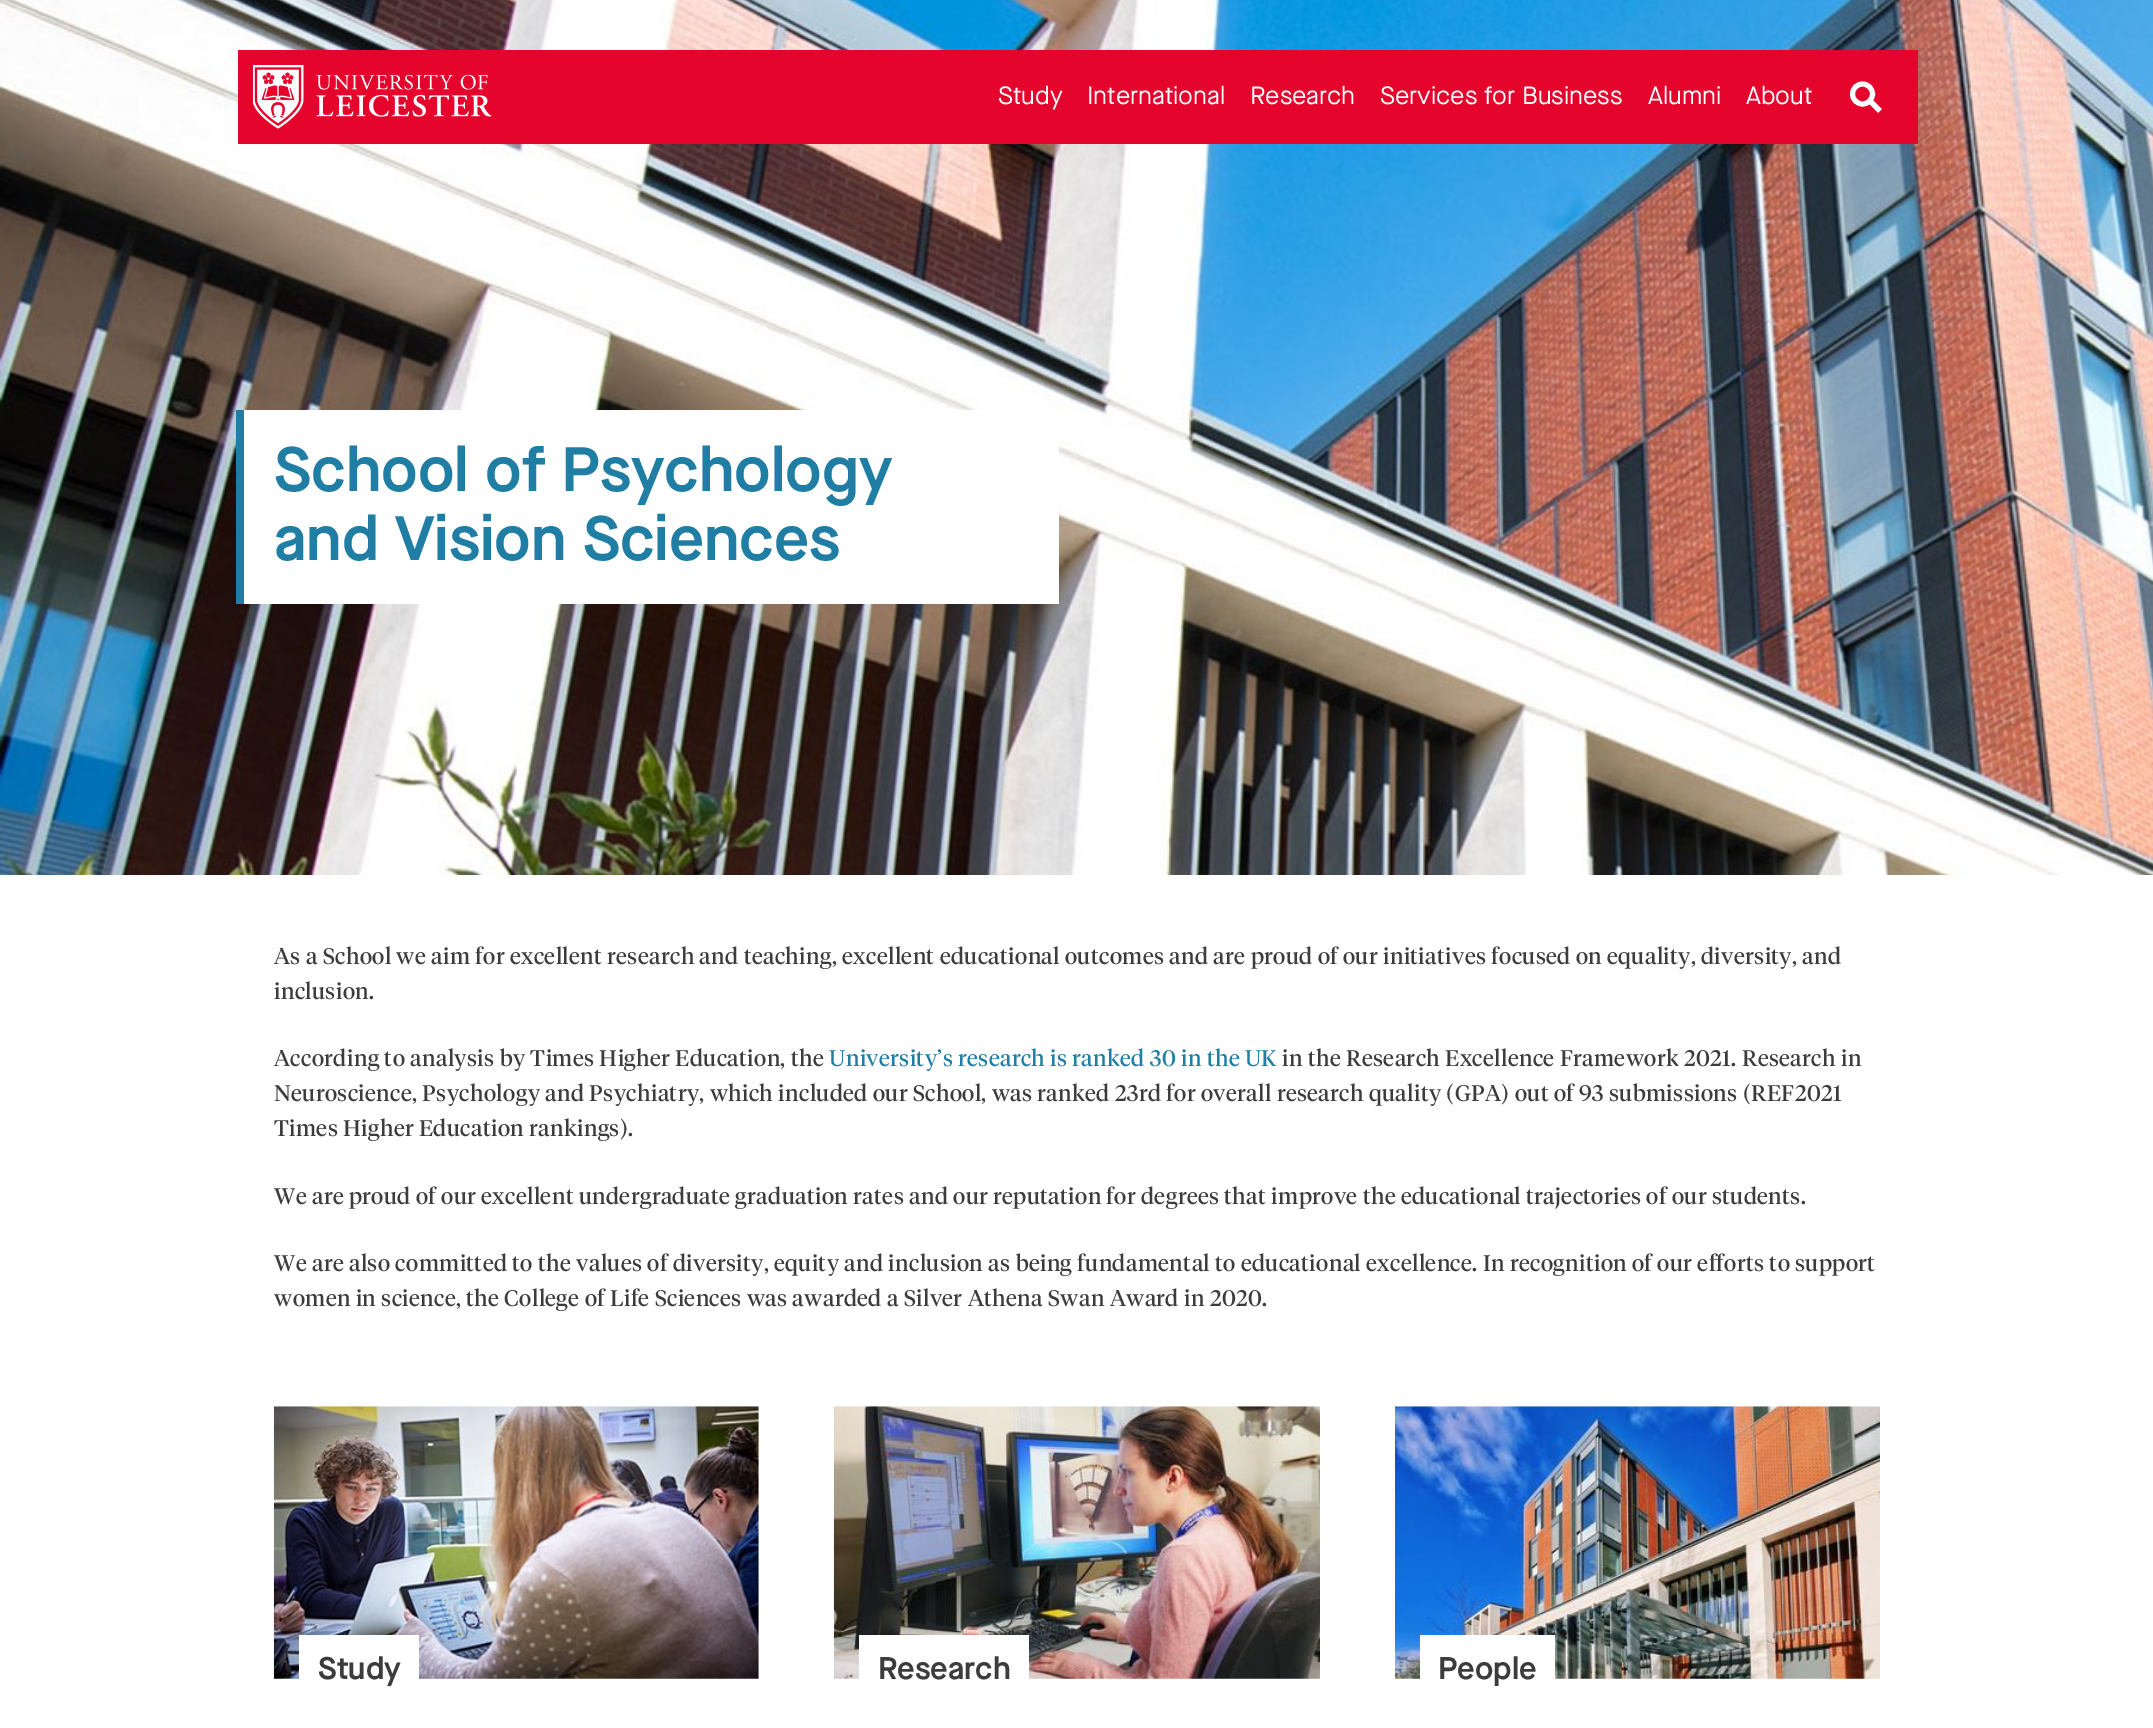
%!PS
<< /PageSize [2153 1728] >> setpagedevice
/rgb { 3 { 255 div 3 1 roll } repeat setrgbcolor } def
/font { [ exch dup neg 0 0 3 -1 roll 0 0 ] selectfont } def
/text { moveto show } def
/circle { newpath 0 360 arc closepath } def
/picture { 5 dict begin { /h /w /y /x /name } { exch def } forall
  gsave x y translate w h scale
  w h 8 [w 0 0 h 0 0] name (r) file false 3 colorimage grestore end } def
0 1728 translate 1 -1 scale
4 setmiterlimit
255 255 255 rgb
0 0 2153 1728 rectfill
(img_02.rgb) 0 0 2153 875 picture
228 4 44 rgb
238 50 1680 94 rectfill
(img_01.rgb) 253 65 239 64 picture
255 255 255 rgb
5 setlinewidth
1870 101 moveto 10 10 rlineto stroke
1862.5 94 10 circle stroke
244 410 815 194 rectfill
32 126 164 rgb
236 410 8 194 rectfill
(img_03.rgb) 273 1406 486 273 picture
255 255 255 rgb
299 1635 120 44 rectfill
(img_04.rgb) 833 1406 487 273 picture
859 1635 170 44 rectfill
(img_05.rgb) 1395 1406 485 273 picture
1420 1635 135 44 rectfill
/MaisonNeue-Regular 25 font
(Study) 998 104 text
(International) 1087 104 text
(Research) 1250 104 text
(Services for Business) 1380 104 text
(Alumni) 1648 104 text
(About) 1746 104 text
/MaisonNeue-SemiBold 62.5 font
32 126 164 rgb
(School of Psychology) 274 491 text
(and Vision Sciences) 274 560 text
/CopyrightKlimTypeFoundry-Regular 22.5 font
60 60 60 rgb
274 964 moveto 0.45 0 (As a School we aim for excellent research and teaching, excellent educational outcomes and are proud of our initiatives focused on equality, diversity, and) ashow
274 999 moveto 0.45 0 (inclusion.) ashow
274 1066 moveto 0.45 0 (According to analysis by Times Higher Education, the) ashow
32 126 164 rgb
829 1066 moveto 0.45 0 (University’s research is ranked 30 in the UK) ashow
60 60 60 rgb
1282 1066 moveto 0.45 0 (in the Research Excellence Framework 2021. Research in) ashow
274 1101 moveto 0.45 0 (Neuroscience, Psychology and Psychiatry, which included our School, was ranked 23rd for overall research quality \(GPA\) out of 93 submissions \(REF2021) ashow
274 1136 moveto 0.45 0 (Times Higher Education rankings\).) ashow
274 1204 moveto 0.45 0 (We are proud of our excellent undergraduate graduation rates and our reputation for degrees that improve the educational trajectories of our students.) ashow
274 1271 moveto 0.45 0 (We are also committed to the values of diversity, equity and inclusion as being fundamental to educational excellence. In recognition of our efforts to support) ashow
274 1306 moveto 0.45 0 (women in science, the College of Life Sciences was awarded a Silver Athena Swan Award in 2020.) ashow
/MaisonNeue-SemiBold 31.25 font
(Study) 318 1679 text
(Research) 878 1679 text
(People) 1438 1679 text
showpage
